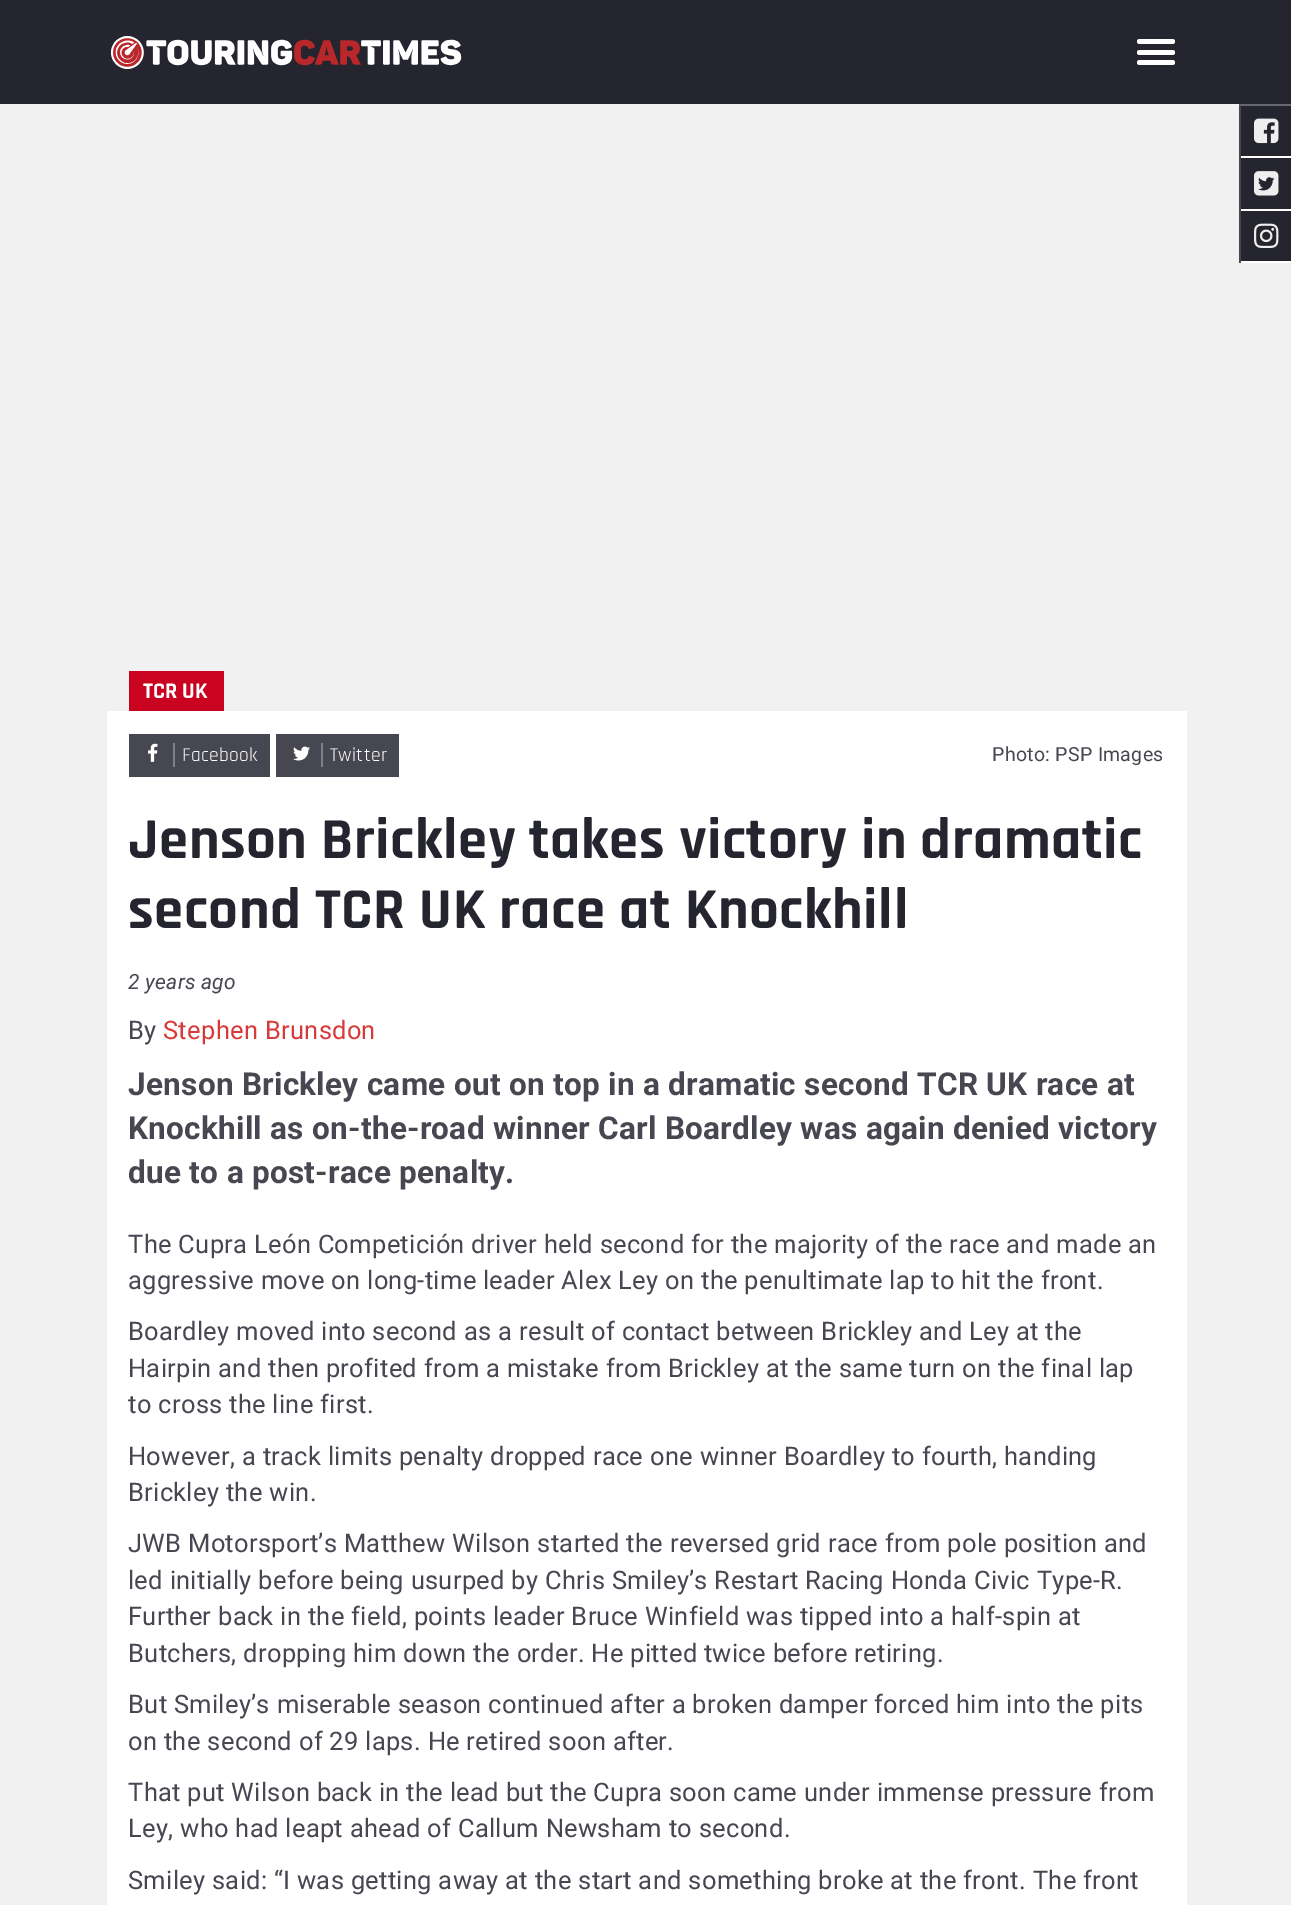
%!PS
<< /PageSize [1291 1905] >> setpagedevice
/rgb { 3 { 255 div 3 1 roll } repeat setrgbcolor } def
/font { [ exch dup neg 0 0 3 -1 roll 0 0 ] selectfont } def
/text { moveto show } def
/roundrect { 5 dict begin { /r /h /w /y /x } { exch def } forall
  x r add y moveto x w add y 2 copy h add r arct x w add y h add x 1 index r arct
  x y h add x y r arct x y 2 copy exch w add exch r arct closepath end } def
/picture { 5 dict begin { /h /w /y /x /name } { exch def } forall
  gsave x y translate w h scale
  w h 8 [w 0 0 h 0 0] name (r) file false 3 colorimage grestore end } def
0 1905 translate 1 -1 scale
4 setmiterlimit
241 241 241 rgb
0 0 1291 1905 rectfill
36 37 46 rgb
0 0 1291 104 rectfill
(img_01.rgb) 110 36 352 33 picture
255 255 255 rgb
1137 39 38 5 2.5 roundrect fill
1137 50 38 5 2.5 roundrect fill
1137 60 38 5 2.5 roundrect fill
36 37 46 rgb
1241 106 50 155 rectfill
102 102 109 rgb
1239 104 52 2 rectfill
255 255 255 rgb
1239 156 52 2 rectfill
70 71 81 rgb
1239 105 2 53 rectfill
(img_02.rgb) 1254 118 25 26 picture
255 255 255 rgb
1239 209 52 2 rectfill
70 71 81 rgb
1239 158 2 52 rectfill
(img_03.rgb) 1254 171 25 25 picture
255 255 255 rgb
1239 261 52 2 rectfill
70 71 81 rgb
1239 210 2 53 rectfill
(img_04.rgb) 1254 223 25 25 picture
202 3 32 rgb
129 671 95 40 rectfill
255 255 255 rgb
107 711 1080 1194 rectfill
70 71 81 rgb
129 734 141 43 rectfill
(img_05.rgb) 148 743 10 19 picture
126 126 133 rgb
173 743 2 24 rectfill
70 71 81 rgb
276 734 123 43 rectfill
(img_06.rgb) 293 746 17 15 picture
126 126 133 rgb
321 743 2 24 rectfill
/Rajdhani-Bold 22.5 font
255 255 255 rgb
(TCR UK) 143 698 text
/Rajdhani-Regular 19.5 font
182 761 moveto 0.3 0 (Facebook) ashow
330 761 moveto 0.3 0 (Twitter) ashow
/Roboto-Regular 19.5 font
70 71 81 rgb
992 761 moveto 0.3 0 (Photo: PSP Images) ashow
/Rajdhani-Bold 58.5 font
36 37 46 rgb
128 858 moveto 0.6 0 (Jenson Brickley takes victory in dramatic) ashow
128 928 moveto 0.6 0 (second TCR UK race at Knockhill) ashow
/Roboto-Italic 21 font
70 71 81 rgb
128 989 moveto 0.3 0 (2 years ago) ashow
/Roboto-Regular 25.5 font
128 1039 moveto 0.3 0 (By) ashow
216 58 58 rgb
163 1039 moveto 0.3 0 (Stephen Brunsdon) ashow
/Roboto-Bold 31.5 font
70 71 81 rgb
128 1095 moveto 0.3 0 (Jenson Brickley came out on top in a dramatic second TCR UK race at) ashow
128 1139 moveto 0.3 0 (Knockhill as on-the-road winner Carl Boardley was again denied victory) ashow
128 1183 moveto 0.3 0 (due to a post-race penalty.) ashow
/Roboto-Regular 25.5 font
128 1253 moveto 0.3 0 (The Cupra León Competición driver held second for the majority of the race and made an) ashow
128 1289 moveto 0.3 0 (aggressive move on long-time leader Alex Ley on the penultimate lap to hit the front.) ashow
128 1340 moveto 0.3 0 (Boardley moved into second as a result of contact between Brickley and Ley at the) ashow
128 1377 moveto 0.3 0 (Hairpin and then profited from a mistake from Brickley at the same turn on the final lap) ashow
128 1413 moveto 0.3 0 (to cross the line first.) ashow
128 1465 moveto 0.3 0 (However, a track limits penalty dropped race one winner Boardley to fourth, handing) ashow
128 1501 moveto 0.3 0 (Brickley the win.) ashow
128 1552 moveto 0.3 0 (JWB Motorsport’s Matthew Wilson started the reversed grid race from pole position and) ashow
128 1589 moveto 0.3 0 (led initially before being usurped by Chris Smiley’s Restart Racing Honda Civic Type-R.) ashow
128 1625 moveto 0.3 0 (Further back in the field, points leader Bruce Winfield was tipped into a half-spin at) ashow
128 1662 moveto 0.3 0 (Butchers, dropping him down the order. He pitted twice before retiring.) ashow
128 1713 moveto 0.3 0 (But Smiley’s miserable season continued after a broken damper forced him into the pits) ashow
128 1750 moveto 0.3 0 (on the second of 29 laps. He retired soon after.) ashow
128 1801 moveto 0.3 0 (That put Wilson back in the lead but the Cupra soon came under immense pressure from) ashow
128 1837 moveto 0.3 0 (Ley, who had leapt ahead of Callum Newsham to second.) ashow
128 1889 moveto 0.3 0 (Smiley said: “I was getting away at the start and something broke at the front. The front) ashow
showpage
